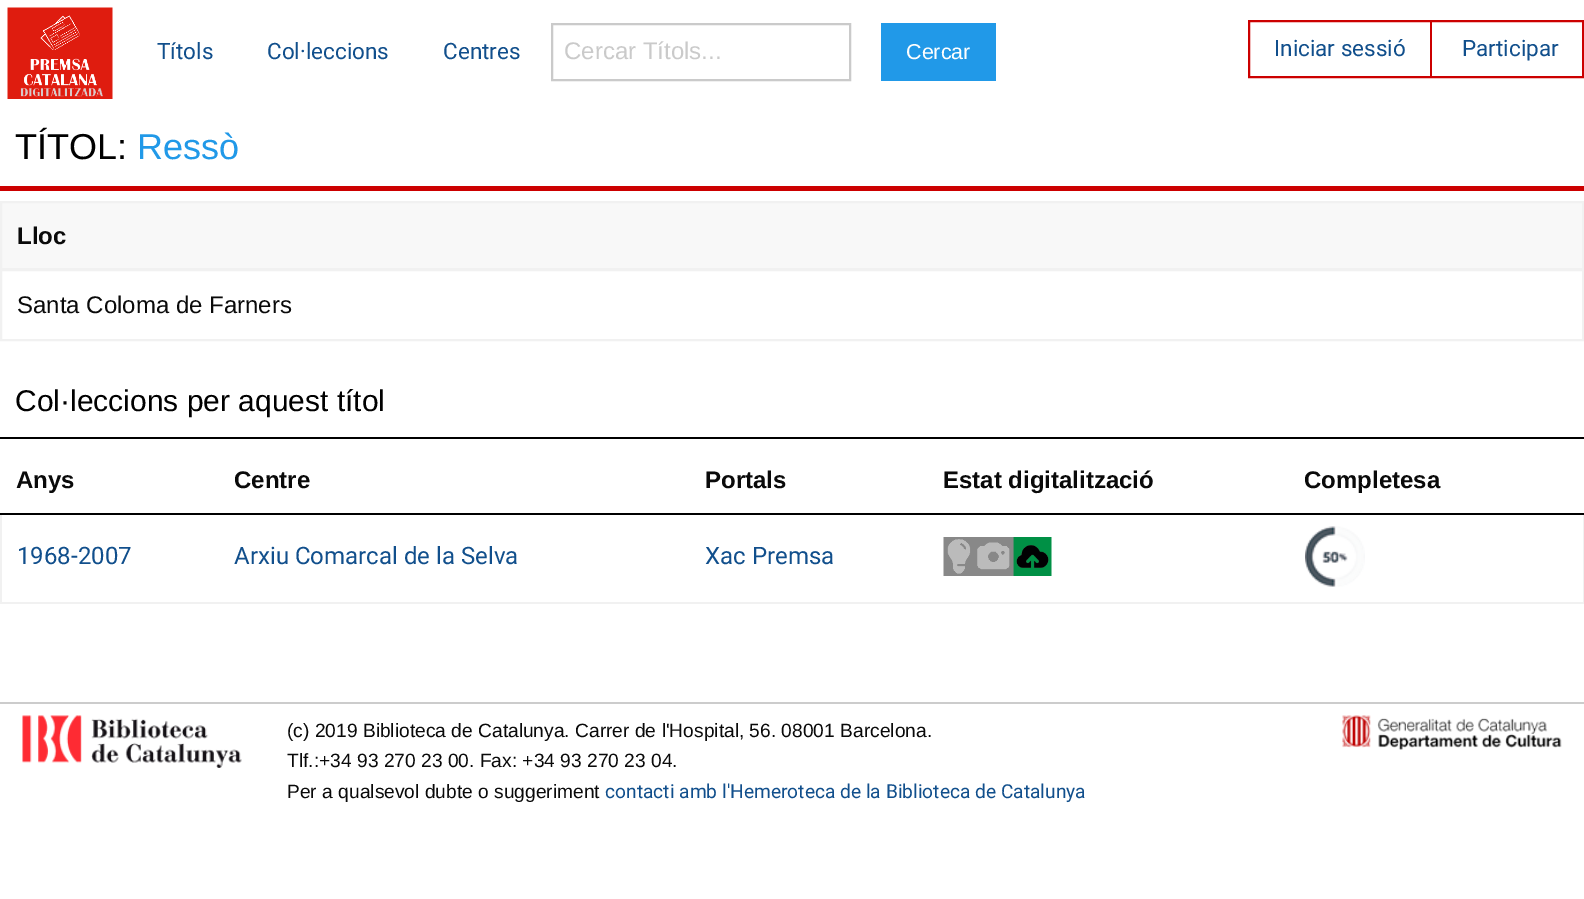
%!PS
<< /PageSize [1584 899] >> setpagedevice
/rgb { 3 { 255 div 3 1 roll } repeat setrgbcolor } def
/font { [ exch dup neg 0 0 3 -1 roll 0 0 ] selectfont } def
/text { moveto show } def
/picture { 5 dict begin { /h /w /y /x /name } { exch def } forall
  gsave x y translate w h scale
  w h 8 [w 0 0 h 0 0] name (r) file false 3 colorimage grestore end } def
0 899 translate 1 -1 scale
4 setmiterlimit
255 255 255 rgb
0 0 1584 899 rectfill
(img_01.rgb) 7 7 106 92 picture
202 202 202 rgb
2 setlinewidth
552 24 298 56 rectstroke
33 153 232 rgb
881 23 115 58 rectfill
204 0 0 rgb
1249 21 334 56 rectstroke
1430 21 2 56 rectfill
0 186 1584 5 rectfill
248 248 248 rgb
1 202 moveto 1582 0 rlineto 0 67 rlineto -1582 0 rlineto closepath gsave fill grestore
241 241 241 rgb
stroke
1 270 1582 70 rectstroke
0 0 0 rgb
0 437 1584 2 rectfill
241 241 241 rgb
1583 513 1 90 rectfill
0 602 1584 2 rectfill
0 513 2 90 rectfill
0 0 0 rgb
0 513 1584 2 rectfill
(img_02.rgb) 943 537 109 39 picture
(img_03.rgb) 1305 526 60 61 picture
204 204 204 rgb
0 702 1584 2 rectfill
(img_04.rgb) 22 715 220 53 picture
(img_05.rgb) 1342 715 220 35 picture
/Roboto-Regular 22.5 font
17 79 140 rgb
(Títols) 157 59 text
(Col·leccions) 267 59 text
(Centres) 443 59 text
/LiberationSans-Regular 24 font
202 202 202 rgb
(Cercar Títols...) 564 59 text
/LiberationSans-Regular 21.5 font
254 254 254 rgb
(Cercar) 906 59 text
/Roboto-Regular 22.5 font
17 79 140 rgb
(Iniciar sessió) 1274 56 text
(Participar) 1462 56 text
/LiberationSans-Regular 36 font
0 0 0 rgb
(TÍTOL:) 15 159 text
33 153 232 rgb
(Ressò) 137 159 text
/LiberationSans-Bold 24 font
10 10 10 rgb
(Lloc) 17 244 text
/LiberationSans-Regular 24 font
(Santa Coloma de Farners) 17 313 text
/LiberationSans-Regular 30 font
0 0 0 rgb
(Col·leccions per aquest títol) 15 411 text
/LiberationSans-Bold 24 font
10 10 10 rgb
(Anys) 16 488 text
(Centre) 234 488 text
(Portals) 705 488 text
(Estat digitalització) 943 488 text
(Completesa) 1304 488 text
/Roboto-Regular 24 font
17 79 140 rgb
(1968-2007) 17 564 text
(Arxiu Comarcal de la Selva) 234 564 text
(Xac Premsa) 705 564 text
/LiberationSans-Regular 19.2 font
10 10 10 rgb
(\(c\) 2019 Biblioteca de Catalunya. Carrer de l'Hospital, 56. 08001 Barcelona.) 287 737 text
(Tlf.:+34 93 270 23 00. Fax: +34 93 270 23 04.) 287 767 text
(Per a qualsevol dubte o suggeriment) 287 798 text
/Roboto-Regular 19.2 font
17 79 140 rgb
(contacti amb l'Hemeroteca de la Biblioteca de Catalunya) 605 798 text
showpage
